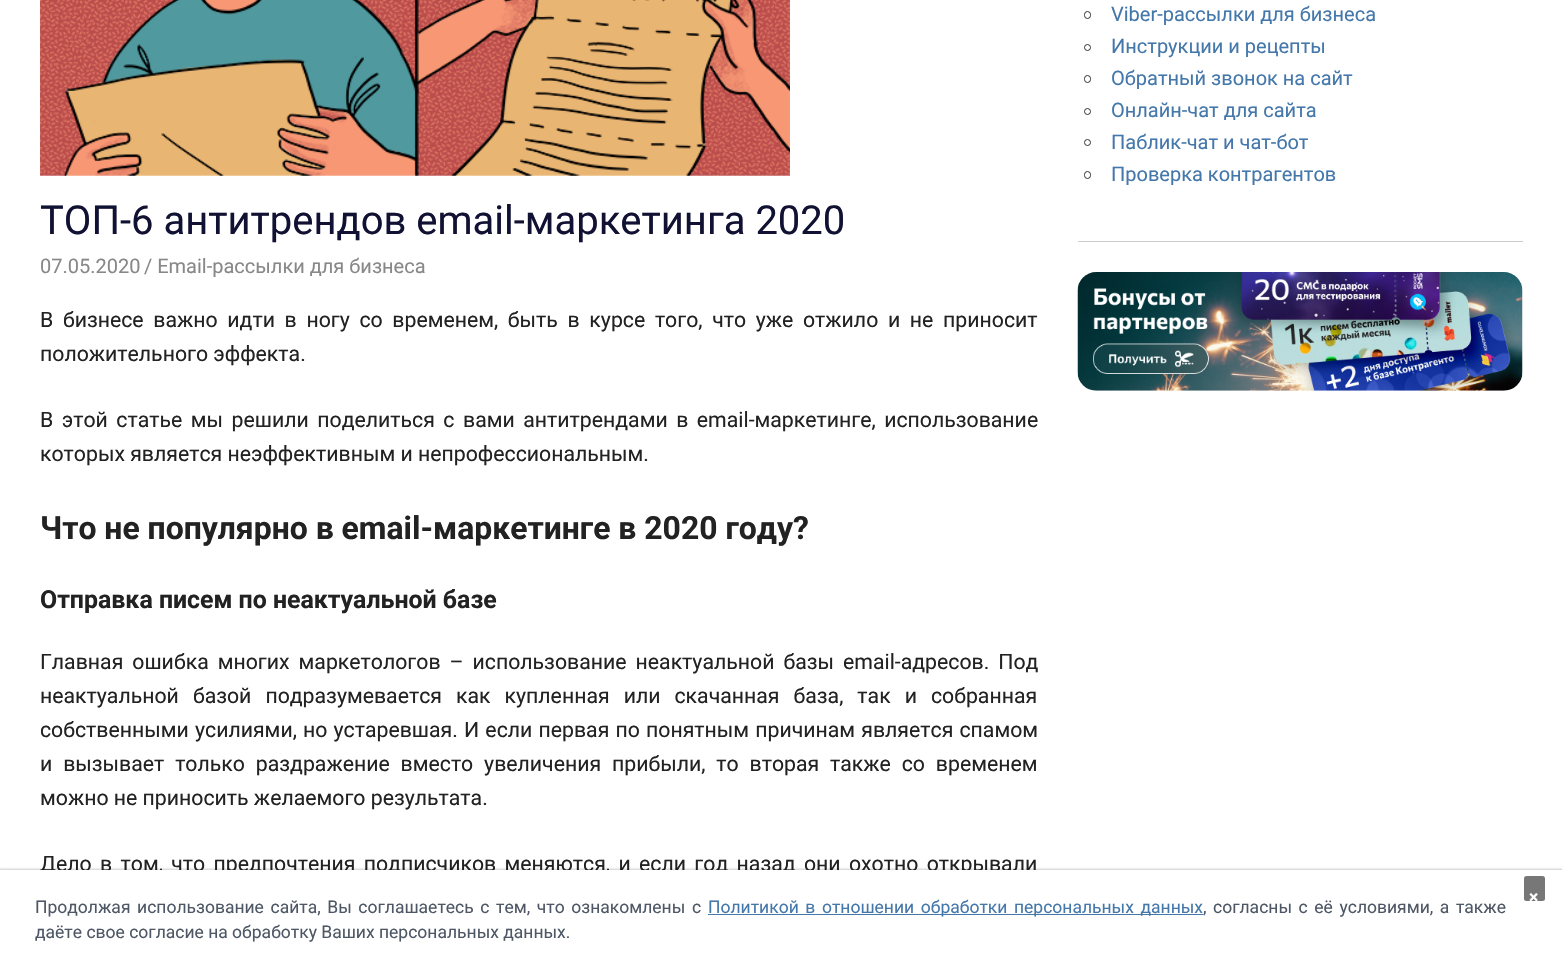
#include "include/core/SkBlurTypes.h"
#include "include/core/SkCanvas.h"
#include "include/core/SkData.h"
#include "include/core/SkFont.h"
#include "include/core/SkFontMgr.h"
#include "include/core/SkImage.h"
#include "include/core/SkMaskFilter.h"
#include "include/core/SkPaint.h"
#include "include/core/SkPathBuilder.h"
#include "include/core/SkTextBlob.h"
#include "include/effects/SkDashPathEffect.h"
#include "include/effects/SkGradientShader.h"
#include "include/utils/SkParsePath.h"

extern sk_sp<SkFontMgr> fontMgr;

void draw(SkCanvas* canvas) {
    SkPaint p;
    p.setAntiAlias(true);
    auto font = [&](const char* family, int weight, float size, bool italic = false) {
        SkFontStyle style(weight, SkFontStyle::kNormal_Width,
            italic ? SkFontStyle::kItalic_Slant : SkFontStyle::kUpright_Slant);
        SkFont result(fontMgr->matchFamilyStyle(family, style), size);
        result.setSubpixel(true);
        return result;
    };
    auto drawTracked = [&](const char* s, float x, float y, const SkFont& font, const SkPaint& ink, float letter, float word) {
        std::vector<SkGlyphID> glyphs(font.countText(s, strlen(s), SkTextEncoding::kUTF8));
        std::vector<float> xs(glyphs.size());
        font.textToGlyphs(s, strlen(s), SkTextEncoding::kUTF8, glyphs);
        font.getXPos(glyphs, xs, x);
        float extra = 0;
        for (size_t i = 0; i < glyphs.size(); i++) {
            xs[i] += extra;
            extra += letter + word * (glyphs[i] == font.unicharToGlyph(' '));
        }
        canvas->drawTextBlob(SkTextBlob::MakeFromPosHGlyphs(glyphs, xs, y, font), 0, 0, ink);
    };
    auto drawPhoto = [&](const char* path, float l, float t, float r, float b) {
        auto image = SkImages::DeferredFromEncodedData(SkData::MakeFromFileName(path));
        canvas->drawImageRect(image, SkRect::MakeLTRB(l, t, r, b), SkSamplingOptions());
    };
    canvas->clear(0xFFFFFFFF);
    p.setStyle(SkPaint::kStroke_Style);
    p.setStrokeWidth(1);
    p.setColor(0xFF333333);
    canvas->drawRoundRect(SkRect::MakeLTRB(1084.5f, 11.5f, 1090.5f, 18.5f), 3, 3, p);
    auto font1 = font("Roboto", 400, 20);
    p.setStyle(SkPaint::kFill_Style);
    p.setColor(0xFF4477AA);
    canvas->drawString("Viber-рассылки для бизнеса", 1111, 21, font1, p);
    p.setStyle(SkPaint::kStroke_Style);
    p.setColor(0xFF333333);
    canvas->drawCircle(1087.5f, 47.5f, 3, p);
    p.setStyle(SkPaint::kFill_Style);
    p.setColor(0xFF4477AA);
    canvas->drawString("Инструкции и рецепты", 1111, 53, font1, p);
    p.setStyle(SkPaint::kStroke_Style);
    p.setColor(0xFF333333);
    canvas->drawRoundRect(SkRect::MakeLTRB(1084.5f, 75.5f, 1090.5f, 82.5f), 3, 3, p);
    p.setStyle(SkPaint::kFill_Style);
    p.setColor(0xFF4477AA);
    canvas->drawString("Обратный звонок на сайт", 1111, 85, font1, p);
    p.setStyle(SkPaint::kStroke_Style);
    p.setColor(0xFF333333);
    canvas->drawCircle(1087.5f, 111.5f, 3, p);
    p.setStyle(SkPaint::kFill_Style);
    p.setColor(0xFF4477AA);
    canvas->drawString("Онлайн-чат для сайта", 1111, 117, font1, p);
    p.setStyle(SkPaint::kStroke_Style);
    p.setColor(0xFF333333);
    canvas->drawCircle(1087.5f, 142.5f, 3, p);
    p.setStyle(SkPaint::kFill_Style);
    p.setColor(0xFF4477AA);
    canvas->drawString("Паблик-чат и чат-бот", 1111, 149, font1, p);
    p.setStyle(SkPaint::kStroke_Style);
    p.setColor(0xFF333333);
    canvas->drawRoundRect(SkRect::MakeLTRB(1084.5f, 171.5f, 1090.5f, 178.5f), 3, 3, p);
    p.setStyle(SkPaint::kFill_Style);
    p.setColor(0xFF4477AA);
    canvas->drawString("Проверка контрагентов", 1111, 181, font1, p);
    p.setColor(0xFFCCCCCC);
    canvas->drawRect(SkRect::MakeLTRB(1078, 241, 1523, 242), p);
    drawPhoto("media/1.png", 1077, 272, 1523, 391);
    drawPhoto("media/2.png", 40, 0, 790, 176);
    auto font2 = font("Roboto", 400, 40);
    p.setColor(0xFF111133);
    canvas->drawString("ТОП-6 антитрендов email-маркетинга 2020", 40, 234, font2, p);
    p.setColor(0xFF888888);
    canvas->drawString("07.05.2020", 40, 273, font1, p);
    canvas->drawString("/ Email-рассылки для бизнеса", 144, 273, font1, p);
    auto font3 = font("Roboto", 400, 21.25f);
    p.setColor(0xFF222222);
    drawTracked("В бизнесе важно идти в ногу со временем, быть в курсе того, что уже отжило и не приносит", 40, 327, font3, p, 0, 4.4f);
    canvas->drawString("положительного эффекта.", 40, 361, font3, p);
    drawTracked("В этой статье мы решили поделиться с вами антитрендами в email-маркетинге, использование", 40, 427, font3, p, 0, 3.25f);
    canvas->drawString("которых является неэффективным и непрофессиональным.", 40, 461, font3, p);
    auto font4 = font("Roboto", 700, 31.9f);
    canvas->drawString("Что не популярно в email-маркетинге в 2020 году?", 40, 539, font4, p);
    auto font5 = font("Roboto", 700, 24.9f);
    canvas->drawString("Отправка писем по неактуальной базе", 40, 608, font5, p);
    drawTracked("Главная ошибка многих маркетологов – использование неактуальной базы email-адресов. Под", 40, 669, font3, p, 0, 3.75f);
    drawTracked("неактуальной базой подразумевается как купленная или скачанная база, так и собранная", 40, 703, font3, p, 0, 8.75f);
    drawTracked("собственными усилиями, но устаревшая. И если первая по понятным причинам является спамом", 40, 737, font3, p, 0, 0.9f);
    drawTracked("и вызывает только раздражение вместо увеличения прибыли, то вторая также со временем", 40, 771, font3, p, 0, 5.6f);
    canvas->drawString("можно не приносить желаемого результата.", 40, 805, font3, p);
    drawTracked("Дело в том, что предпочтения подписчиков меняются, и если год назад они охотно открывали", 40, 871, font3, p, 0, 3.1f);
    p.setColor(0x33000000);
    p.setMaskFilter(SkMaskFilter::MakeBlur(kNormal_SkBlurStyle, 1));
    canvas->drawRect(SkRect::MakeLTRB(-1, 869, 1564, 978), p);
    p.setMaskFilter(nullptr);
    p.setColor(0xFFFFFFFF);
    canvas->drawRect(SkRect::MakeLTRB(0, 870, 1562, 976), p);
    p.setColor(0xFF777777);
    canvas->drawRoundRect(SkRect::MakeLTRB(1524, 876, 1545, 901), 2.5f, 2.5f, p);
    auto font6 = font("Roboto", 700, 17.5f);
    p.setColor(0xFFFFFFFF);
    canvas->drawString("×", 1529, 903, font6, p);
    auto font7 = font("Roboto", 400, 17.5f);
    p.setColor(0xFF4E5765);
    drawTracked("Продолжая использование сайта, Вы соглашаетесь с тем, что ознакомлены с", 35, 913, font7, p, 0, 2.25f);
    p.setColor(0xFF4477AA);
    canvas->drawRect(SkRect::MakeLTRB(708, 914, 1203, 915), p);
    drawTracked("Политикой в отношении обработки персональных данных", 708, 913, font7, p, 0, 2.25f);
    p.setColor(0xFF4E5765);
    canvas->drawString(",", 1203, 913, font7, p);
    drawTracked("согласны с её условиями, а также", 1213, 913, font7, p, 0, 2.25f);
    canvas->drawString("даёте свое согласие на обработку Ваших персональных данных.", 35, 938, font7, p);
}
